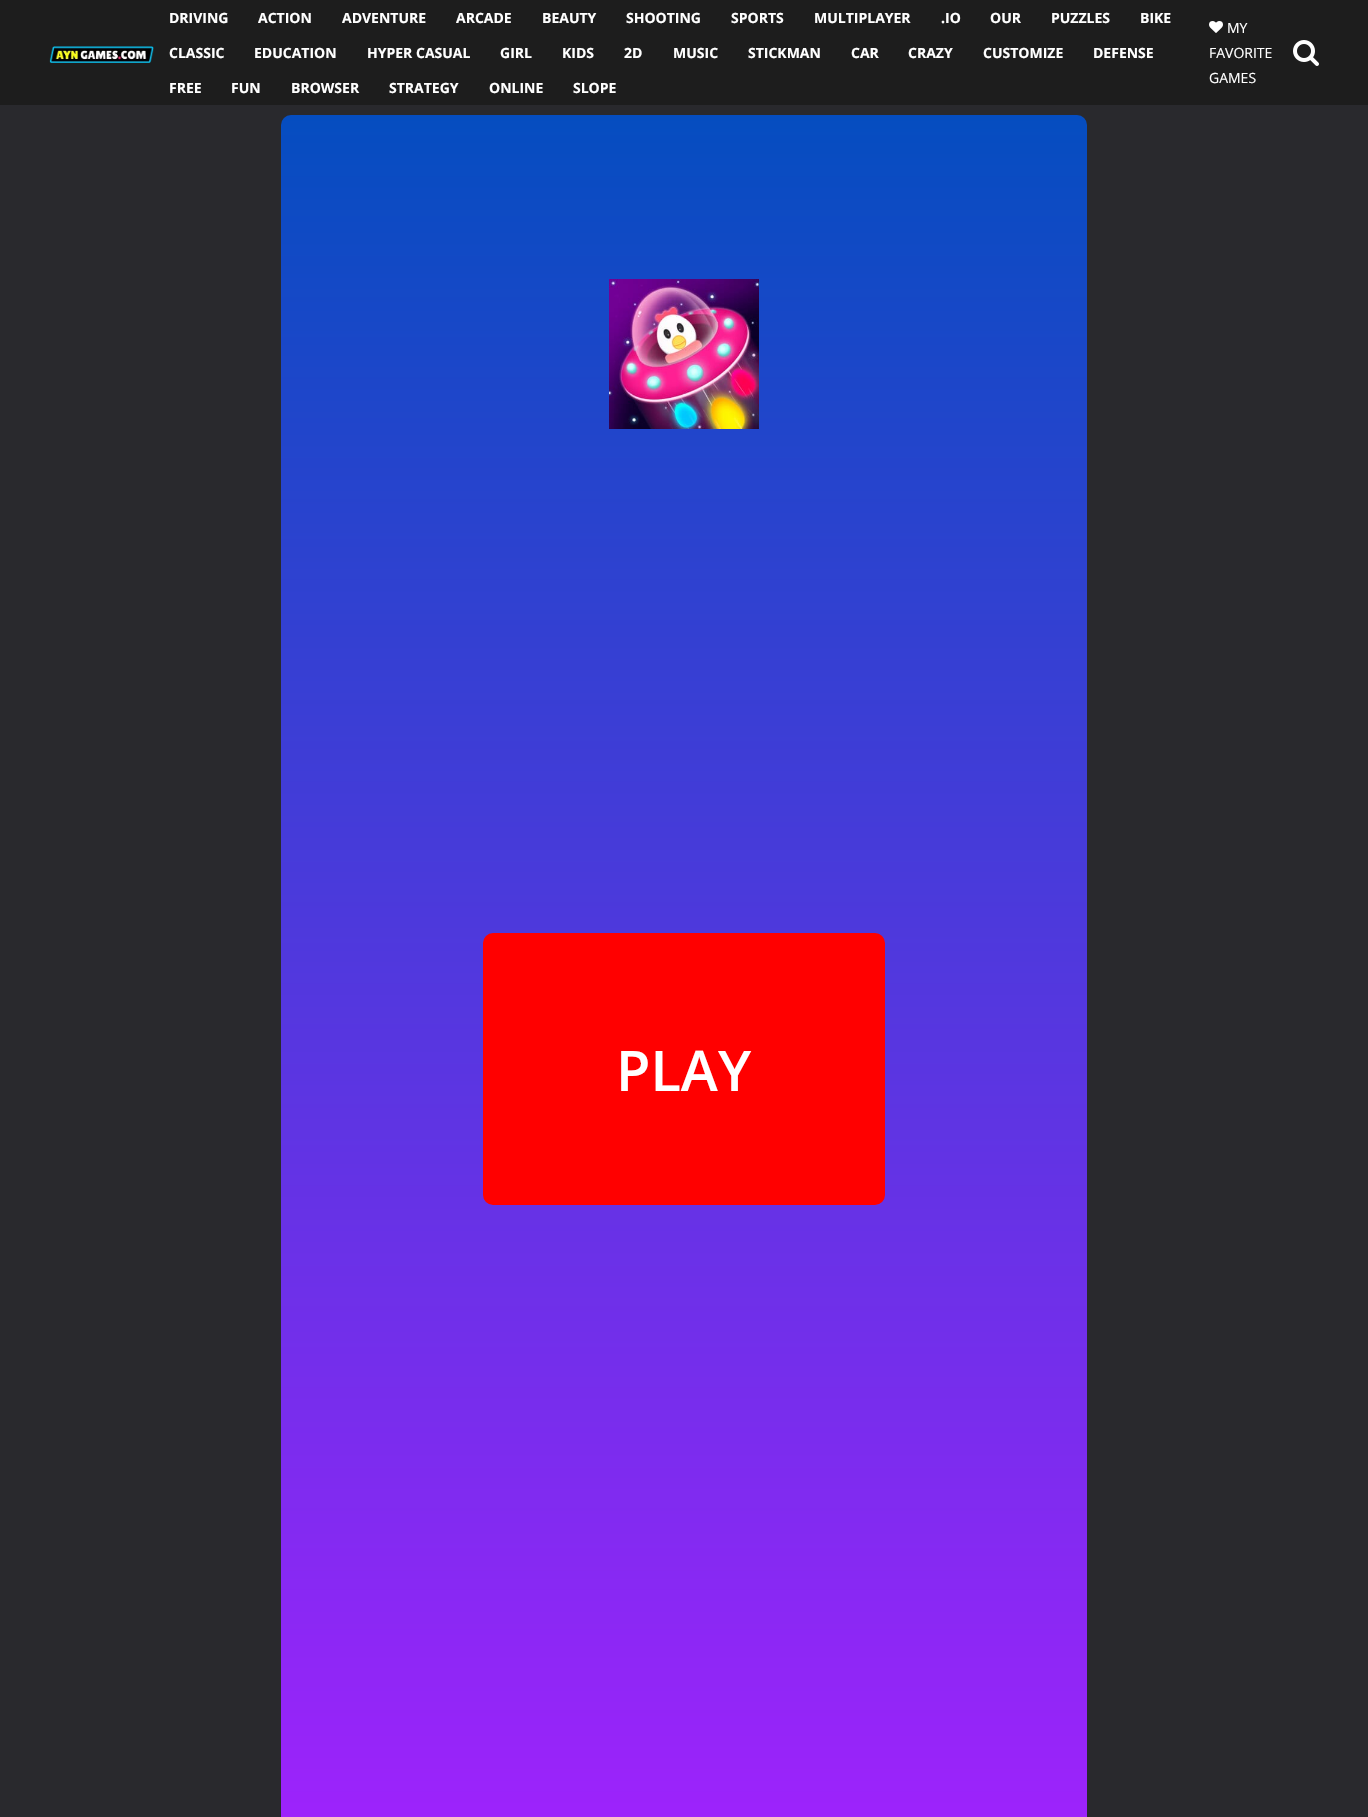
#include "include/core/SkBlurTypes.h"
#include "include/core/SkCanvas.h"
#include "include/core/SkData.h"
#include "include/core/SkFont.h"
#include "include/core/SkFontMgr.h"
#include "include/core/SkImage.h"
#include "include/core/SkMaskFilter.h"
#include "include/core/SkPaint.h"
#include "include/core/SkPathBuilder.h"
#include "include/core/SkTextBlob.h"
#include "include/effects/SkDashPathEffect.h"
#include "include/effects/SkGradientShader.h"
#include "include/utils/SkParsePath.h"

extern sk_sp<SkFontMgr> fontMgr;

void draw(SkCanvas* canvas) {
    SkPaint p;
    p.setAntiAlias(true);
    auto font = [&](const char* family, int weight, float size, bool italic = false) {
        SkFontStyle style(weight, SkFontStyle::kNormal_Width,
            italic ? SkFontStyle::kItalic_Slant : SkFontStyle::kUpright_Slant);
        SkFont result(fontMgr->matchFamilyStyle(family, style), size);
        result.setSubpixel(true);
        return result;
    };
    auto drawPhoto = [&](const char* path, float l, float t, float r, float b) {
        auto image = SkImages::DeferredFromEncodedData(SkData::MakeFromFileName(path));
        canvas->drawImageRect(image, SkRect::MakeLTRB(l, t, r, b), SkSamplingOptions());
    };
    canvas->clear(0xFF1D1D1D);
    drawPhoto("media/1.png", 49, 46, 154, 63);
    auto font1 = font("Open Sans", 700, 14);
    p.setColor(0xFFFFFFFF);
    {
        const struct { const char* s; float x, y; } items[] = {
            {"DRIVING", 169, 23},
            {"ACTION", 258, 23},
            {"ADVENTURE", 342, 23},
            {"ARCADE", 456, 23},
            {"BEAUTY", 542, 23},
            {"SHOOTING", 626, 23},
            {"SPORTS", 731, 23},
            {"MULTIPLAYER", 814, 23},
            {".IO", 941, 23},
            {"OUR", 990, 23},
            {"PUZZLES", 1051, 23},
            {"BIKE", 1140, 23},
            {"CLASSIC", 169, 58},
            {"EDUCATION", 254, 58},
            {"HYPER CASUAL", 367, 58},
            {"GIRL", 500, 58},
            {"KIDS", 562, 58},
            {"2D", 624, 58},
            {"MUSIC", 673, 58},
            {"STICKMAN", 748, 58},
            {"CAR", 851, 58},
            {"CRAZY", 908, 58},
            {"CUSTOMIZE", 983, 58},
            {"DEFENSE", 1093, 58},
            {"FREE", 169, 93},
            {"FUN", 231, 93},
            {"BROWSER", 291, 93},
            {"STRATEGY", 389, 93},
            {"ONLINE", 489, 93},
            {"SLOPE", 573, 93},
        };
        for (auto [s, x, y] : items) {
            canvas->drawString(s, x, y, font1, p);
        }
    }
    drawPhoto("media/2.png", 1209, 21, 1223, 33);
    auto font2 = font("Open Sans", 400, 14);
    {
        const struct { const char* s; float x, y; } items[] = {
            {"MY", 1227, 33},
            {"FAVORITE", 1209, 58},
            {"GAMES", 1209, 83},
        };
        for (auto [s, x, y] : items) {
            canvas->drawString(s, x, y, font2, p);
        }
    }
    drawPhoto("media/3.png", 1293, 40, 1319, 66);
    p.setColor(0xFF29292D);
    canvas->drawRect(SkRect::MakeLTRB(0, 105, 1368, 1817), p);
    {
        const SkColor colors[] = {0xFF054DC0, 0xFFA720FF};
        const float stops[] = {0, 1};
        const SkPoint ends[] = {{684, 115}, {684, 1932}};
        p.setShader(SkGradientShader::MakeLinear(ends, colors, stops, 2, SkTileMode::kClamp));
        p.setAlpha(255);
    }
    canvas->drawRoundRect(SkRect::MakeLTRB(281, 115, 1087, 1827), 10, 10, p);
    drawPhoto("media/4.png", 609, 279, 759, 429);
    p.setShader(nullptr);
    p.setColor(0xFFFF0000);
    canvas->drawRoundRect(SkRect::MakeLTRB(483, 933, 885, 1205), 10, 10, p);
    auto font3 = font("Open Sans", 600, 56);
    p.setColor(0xFFFFFFFF);
    canvas->drawString("PLAY", 616, 1091, font3, p);
}
